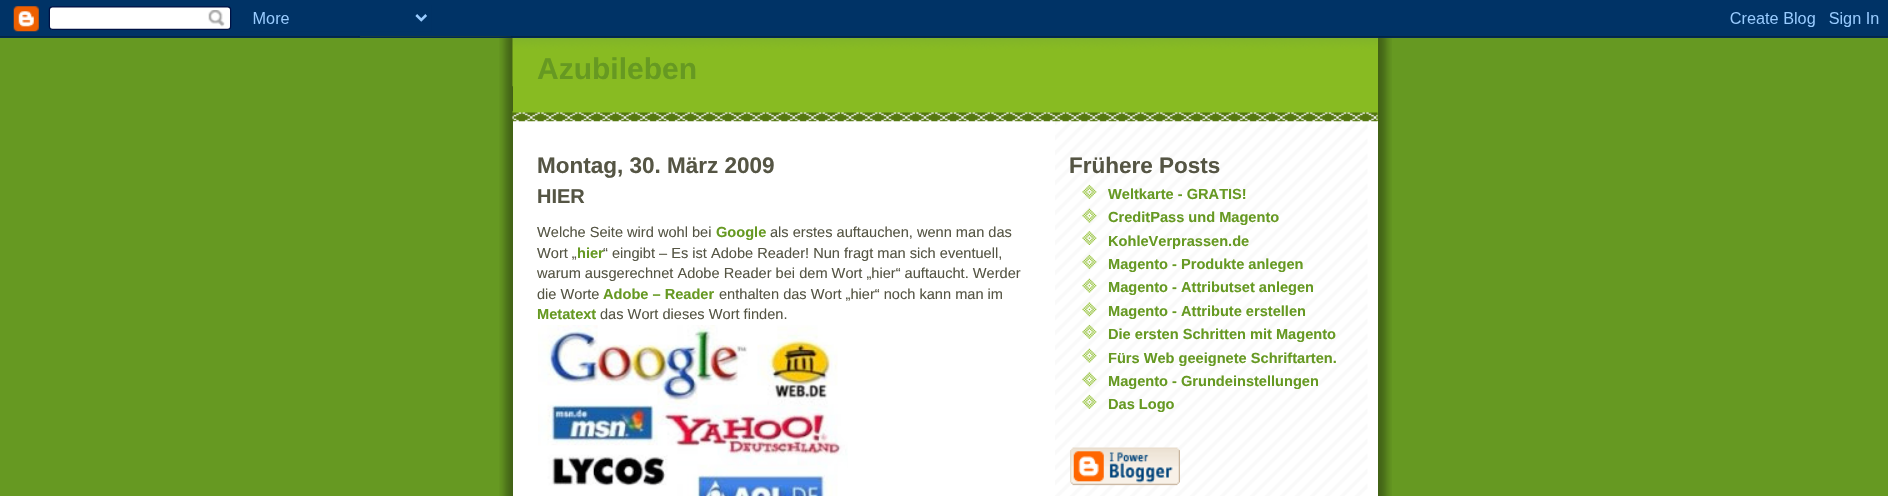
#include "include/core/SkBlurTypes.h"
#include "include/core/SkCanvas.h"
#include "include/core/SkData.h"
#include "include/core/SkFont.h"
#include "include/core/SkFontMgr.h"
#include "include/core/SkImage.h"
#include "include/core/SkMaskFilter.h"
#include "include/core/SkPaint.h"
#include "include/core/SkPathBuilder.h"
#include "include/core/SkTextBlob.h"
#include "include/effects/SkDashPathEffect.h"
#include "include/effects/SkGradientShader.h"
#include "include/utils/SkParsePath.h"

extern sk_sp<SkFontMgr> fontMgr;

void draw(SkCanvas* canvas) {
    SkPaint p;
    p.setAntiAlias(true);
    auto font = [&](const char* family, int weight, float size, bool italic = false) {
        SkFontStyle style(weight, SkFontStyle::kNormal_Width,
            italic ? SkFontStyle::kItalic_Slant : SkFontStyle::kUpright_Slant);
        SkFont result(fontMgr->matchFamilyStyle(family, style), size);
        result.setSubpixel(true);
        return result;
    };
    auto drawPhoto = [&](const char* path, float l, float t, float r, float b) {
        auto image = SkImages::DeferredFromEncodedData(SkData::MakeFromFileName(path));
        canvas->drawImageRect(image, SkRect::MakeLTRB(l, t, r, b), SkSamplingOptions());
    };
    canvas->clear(0xFF669922);
    drawPhoto("media/1.png", 499, 36, 1392, 496);
    p.setColor(0xFF88BB22);
    canvas->drawRect(SkRect::MakeLTRB(513, 36, 1378, 121), p);
    drawPhoto("media/5.png", 512, 36, 1378, 87);
    drawPhoto("media/2.png", 0, 0, 1888, 38);
    p.setColor(0xFFFFFFFF);
    canvas->drawRect(SkRect::MakeLTRB(513, 121, 1378, 496), p);
    drawPhoto("media/3.png", 1055, 121, 1378, 496);
    drawPhoto("media/4.png", 512, 111, 1378, 122);
    auto font1 = font("Liberation Sans", 700, 30);
    p.setColor(0xFF669922);
    canvas->drawString("Azubileben", 537, 79, font1, p);
    auto font2 = font("Liberation Sans", 700, 22.5f);
    p.setColor(0xFF555544);
    canvas->drawString("Montag, 30. März 2009", 537, 173, font2, p);
    auto font3 = font("Liberation Sans", 700, 20);
    canvas->drawString("HIER", 537, 203, font3, p);
    auto font4 = font("Liberation Sans", 400, 14.6f);
    canvas->drawString("Welche Seite wird wohl bei", 537, 237, font4, p);
    auto font5 = font("Liberation Sans", 700, 14.6f);
    p.setColor(0xFF669922);
    canvas->drawString("Google", 716, 237, font5, p);
    p.setColor(0xFF555544);
    canvas->drawString("als erstes auftauchen, wenn man das", 770, 237, font4, p);
    canvas->drawString("Wort „", 537, 258, font4, p);
    p.setColor(0xFF669922);
    canvas->drawString("hier", 577, 258, font5, p);
    p.setColor(0xFF555544);
    {
        const struct { const char* s; float x, y; } items[] = {
            {"“ eingibt – Es ist Adobe Reader! Nun fragt man sich eventuell,", 603, 258},
            {"warum ausgerechnet Adobe Reader bei dem Wort „hier“ auftaucht. Werder", 537, 278},
            {"die Worte", 537, 299},
        };
        for (auto [s, x, y] : items) {
            canvas->drawString(s, x, y, font4, p);
        }
    }
    p.setColor(0xFF669922);
    canvas->drawString("Adobe – Reader", 603, 299, font5, p);
    p.setColor(0xFF555544);
    canvas->drawString("enthalten das Wort „hier“ noch kann man im", 719, 299, font4, p);
    p.setColor(0xFF669922);
    canvas->drawString("Metatext", 537, 319, font5, p);
    p.setColor(0xFF555544);
    canvas->drawString("das Wort dieses Wort finden.", 600, 319, font4, p);
    drawPhoto("media/6.png", 538, 325, 848, 496);
    canvas->drawString("Frühere Posts", 1069, 173, font2, p);
    drawPhoto("media/7.png", 1082, 184, 1097, 199);
    p.setColor(0xFF669922);
    canvas->drawString("Weltkarte - GRATIS!", 1108, 199, font5, p);
    drawPhoto("media/8.png", 1082, 208, 1097, 223);
    canvas->drawString("CreditPass und Magento", 1108, 222, font5, p);
    drawPhoto("media/9.png", 1082, 231, 1097, 245);
    canvas->drawString("KohleVerprassen.de", 1108, 246, font5, p);
    drawPhoto("media/10.png", 1082, 254, 1097, 269);
    canvas->drawString("Magento - Produkte anlegen", 1108, 269, font5, p);
    drawPhoto("media/11.png", 1082, 278, 1097, 293);
    canvas->drawString("Magento - Attributset anlegen", 1108, 292, font5, p);
    drawPhoto("media/12.png", 1082, 302, 1097, 317);
    canvas->drawString("Magento - Attribute erstellen", 1108, 316, font5, p);
    drawPhoto("media/13.png", 1082, 324, 1097, 339);
    canvas->drawString("Die ersten Schritten mit Magento", 1108, 339, font5, p);
    drawPhoto("media/14.png", 1082, 348, 1097, 363);
    canvas->drawString("Fürs Web geeignete Schriftarten.", 1108, 363, font5, p);
    drawPhoto("media/15.png", 1082, 372, 1097, 387);
    canvas->drawString("Magento - Grundeinstellungen", 1108, 386, font5, p);
    drawPhoto("media/7.png", 1082, 394, 1097, 409);
    canvas->drawString("Das Logo", 1108, 409, font5, p);
    drawPhoto("media/16.png", 1070, 447, 1180, 486);
}
